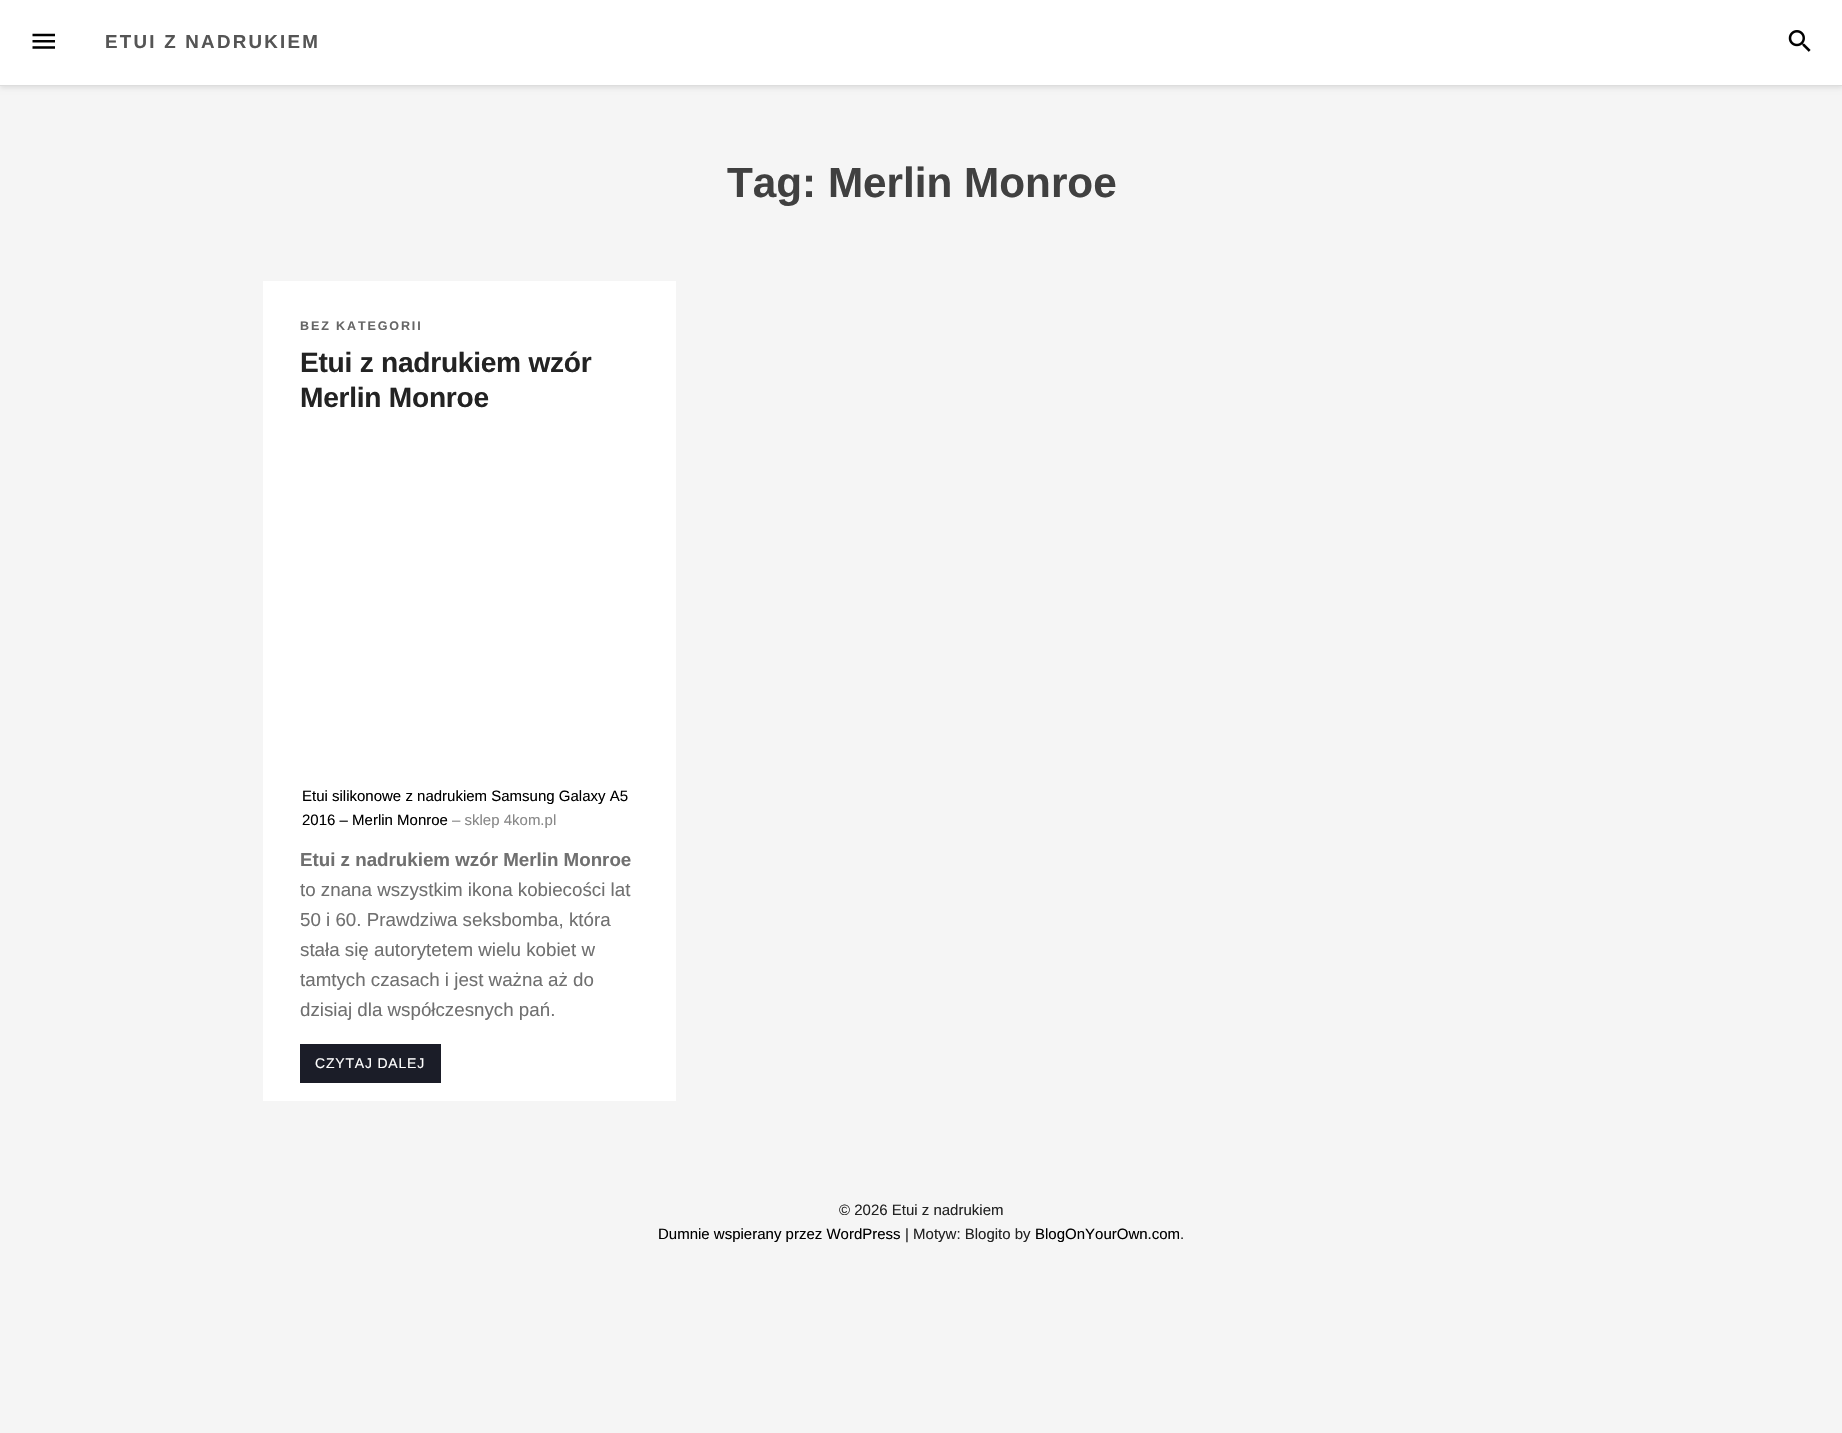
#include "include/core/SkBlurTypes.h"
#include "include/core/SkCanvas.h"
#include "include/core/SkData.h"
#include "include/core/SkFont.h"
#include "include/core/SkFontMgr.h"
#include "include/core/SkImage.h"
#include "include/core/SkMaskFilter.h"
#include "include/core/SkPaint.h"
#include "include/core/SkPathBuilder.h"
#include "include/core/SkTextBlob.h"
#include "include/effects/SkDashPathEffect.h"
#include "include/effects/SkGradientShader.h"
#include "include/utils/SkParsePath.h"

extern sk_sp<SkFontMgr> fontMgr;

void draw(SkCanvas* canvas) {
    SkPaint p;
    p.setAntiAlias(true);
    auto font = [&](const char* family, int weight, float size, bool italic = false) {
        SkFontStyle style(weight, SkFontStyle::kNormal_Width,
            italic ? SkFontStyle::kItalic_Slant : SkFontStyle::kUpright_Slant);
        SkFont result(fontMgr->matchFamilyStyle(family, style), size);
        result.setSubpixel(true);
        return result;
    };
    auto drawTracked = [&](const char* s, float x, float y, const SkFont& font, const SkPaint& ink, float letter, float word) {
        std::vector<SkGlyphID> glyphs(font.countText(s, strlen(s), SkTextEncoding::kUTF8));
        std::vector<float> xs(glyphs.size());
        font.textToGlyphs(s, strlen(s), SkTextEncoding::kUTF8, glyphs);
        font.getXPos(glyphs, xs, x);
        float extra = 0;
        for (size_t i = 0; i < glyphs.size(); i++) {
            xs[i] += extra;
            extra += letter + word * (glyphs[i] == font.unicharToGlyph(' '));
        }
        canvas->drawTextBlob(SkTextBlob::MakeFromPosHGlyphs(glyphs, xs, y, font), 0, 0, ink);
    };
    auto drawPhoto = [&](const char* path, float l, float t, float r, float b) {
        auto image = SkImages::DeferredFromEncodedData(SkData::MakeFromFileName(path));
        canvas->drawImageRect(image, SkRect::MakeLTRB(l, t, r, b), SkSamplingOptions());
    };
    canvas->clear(0xFFF5F5F5);
    p.setColor(0xFFDDDDDD);
    p.setMaskFilter(SkMaskFilter::MakeBlur(kNormal_SkBlurStyle, 2.5f));
    canvas->drawRect(SkRect::MakeLTRB(0, 1, 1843, 88), p);
    p.setMaskFilter(nullptr);
    p.setColor(0xFFFFFFFF);
    canvas->drawRect(SkRect::MakeLTRB(0, 0, 1842, 85), p);
    p.setColor(0xFFDDDDDD);
    canvas->drawRect(SkRect::MakeLTRB(0, 85, 1842, 86), p);
    drawPhoto("media/1.png", 32, 33, 55, 49);
    auto font1 = font("Liberation Sans", 700, 18.75f);
    p.setColor(0xFF555555);
    drawTracked("ETUI Z NADRUKIEM", 105, 48, font1, p, 2.25f, 0);
    drawPhoto("media/2.png", 1788, 30, 1811, 52);
    auto font2 = font("Liberation Sans", 700, 42.25f);
    p.setColor(0xFF404040);
    canvas->drawString("Tag: Merlin Monroe", 727, 197, font2, p);
    p.setColor(0xFFFFFFFF);
    canvas->drawRect(SkRect::MakeLTRB(263, 281, 676, 1101), p);
    auto font3 = font("Liberation Sans", 700, 12.5f);
    p.setColor(0xFF666666);
    drawTracked("BEZ KATEGORII", 300, 330, font3, p, 1.9f, 0);
    auto font4 = font("Liberation Sans", 700, 28.1f);
    p.setColor(0xFF232323);
    drawTracked("Etui z nadrukiem wzór", 300, 372, font4, p, -0.25f, 0);
    drawTracked("Merlin Monroe", 300, 407, font4, p, -0.25f, 0);
    auto font5 = font("Liberation Sans", 400, 15);
    p.setColor(0xFF000000);
    canvas->drawString("Etui silikonowe z nadrukiem Samsung Galaxy A5", 302, 801, font5, p);
    canvas->drawString("2016 – Merlin Monroe", 302, 825, font5, p);
    p.setColor(0xFF888888);
    canvas->drawString("– sklep 4kom.pl", 452, 825, font5, p);
    p.setColor(0xFF707070);
    canvas->drawString("Etui z nadrukiem wzór Merlin Monroe", 300, 866, font1, p);
    auto font6 = font("Liberation Sans", 400, 18.75f);
    {
        const struct { const char* s; float x, y; } items[] = {
            {"to znana wszystkim ikona kobiecości lat", 300, 896},
            {"50 i 60. Prawdziwa seksbomba, która", 300, 926},
            {"stała się autorytetem wielu kobiet w", 300, 956},
            {"tamtych czasach i jest ważna aż do", 300, 986},
            {"dzisiaj dla współczesnych pań.", 300, 1016},
        };
        for (auto [s, x, y] : items) {
            canvas->drawString(s, x, y, font6, p);
        }
    }
    p.setColor(0xFF1B1D28);
    canvas->drawRect(SkRect::MakeLTRB(300, 1044, 441, 1083), p);
    auto font7 = font("Liberation Sans", 400, 14);
    p.setColor(0xFFFFFFFF);
    drawTracked("CZYTAJ DALEJ", 315, 1068, font7, p, 0.8f, 0);
    p.setColor(0xFF232323);
    canvas->drawString("© 2026 Etui z nadrukiem", 839, 1215, font5, p);
    p.setColor(0xFF000000);
    canvas->drawString("Dumnie wspierany przez WordPress", 658, 1239, font5, p);
    p.setColor(0xFF232323);
    canvas->drawString("| Motyw: Blogito by", 905, 1239, font5, p);
    p.setColor(0xFF000000);
    canvas->drawString("BlogOnYourOwn.com", 1035, 1239, font5, p);
    p.setColor(0xFF232323);
    canvas->drawString(".", 1180, 1239, font5, p);
}
